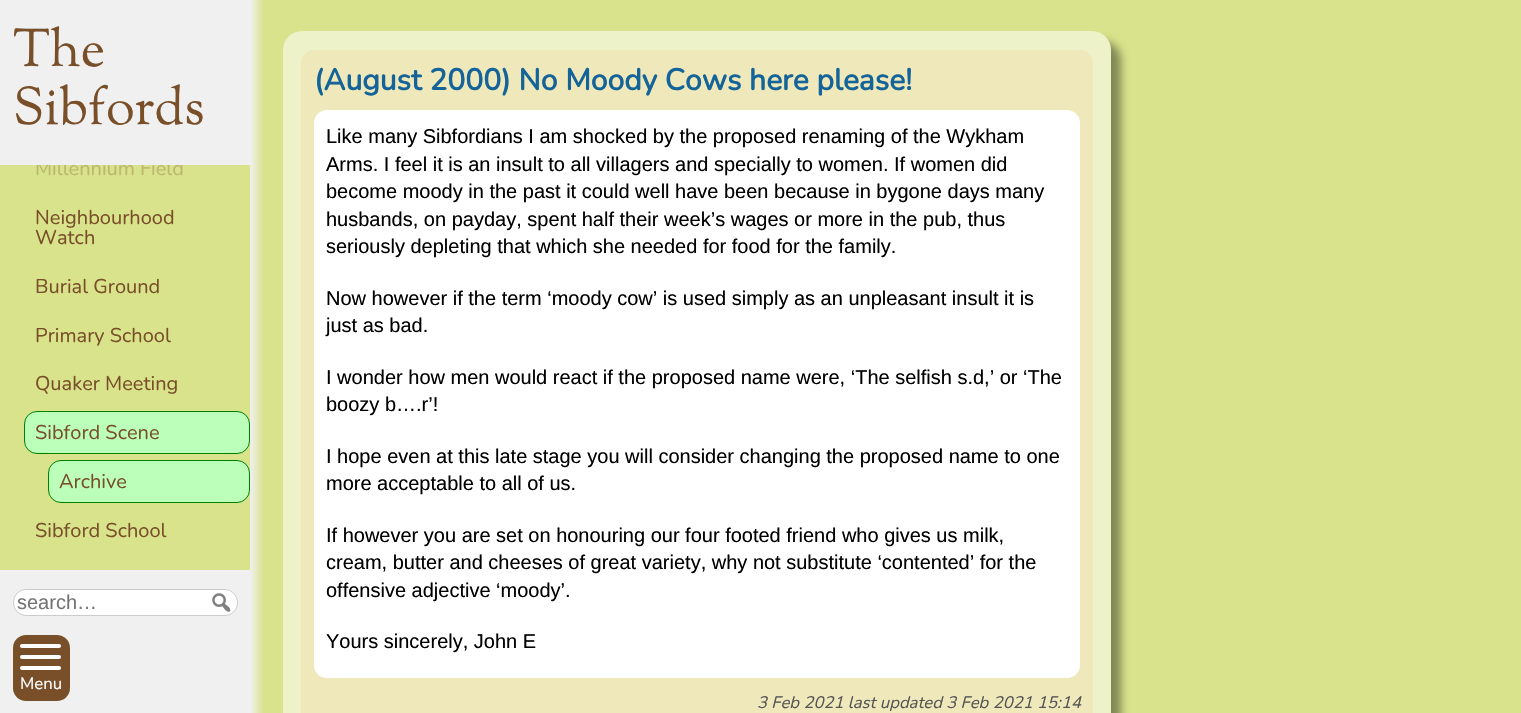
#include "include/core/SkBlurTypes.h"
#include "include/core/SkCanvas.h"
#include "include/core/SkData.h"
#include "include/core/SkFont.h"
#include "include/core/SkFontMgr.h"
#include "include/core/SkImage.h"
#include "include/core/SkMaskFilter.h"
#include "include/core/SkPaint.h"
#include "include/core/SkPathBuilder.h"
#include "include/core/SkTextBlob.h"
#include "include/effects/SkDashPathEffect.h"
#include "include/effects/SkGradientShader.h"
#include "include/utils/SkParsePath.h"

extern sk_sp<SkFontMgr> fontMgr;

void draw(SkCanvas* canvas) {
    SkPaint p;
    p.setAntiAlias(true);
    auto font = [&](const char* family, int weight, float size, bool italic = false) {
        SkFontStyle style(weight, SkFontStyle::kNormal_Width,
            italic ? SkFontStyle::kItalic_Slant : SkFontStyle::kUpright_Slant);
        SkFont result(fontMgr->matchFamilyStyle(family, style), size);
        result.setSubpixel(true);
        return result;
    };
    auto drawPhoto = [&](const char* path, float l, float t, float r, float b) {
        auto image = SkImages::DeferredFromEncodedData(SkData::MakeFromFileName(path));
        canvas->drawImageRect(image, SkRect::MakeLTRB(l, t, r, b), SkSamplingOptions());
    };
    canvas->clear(0xFFF0F0F0);
    {
        const SkColor colors[] = {0xFFF0F0F0, 0xFFD8E38B};
        const float stops[] = {0, 1};
        const SkPoint ends[] = {{250, 357}, {264, 357}};
        p.setShader(SkGradientShader::MakeLinear(ends, colors, stops, 2, SkTileMode::kClamp));
        p.setAlpha(255);
    }
    canvas->drawRect(SkRect::MakeLTRB(250, 0, 264, 713), p);
    auto font1 = font("Sorts Mill Goudy", 400, 52.5f);
    p.setShader(nullptr);
    p.setColor(0xFF794F29);
    canvas->drawString("The", 13, 66, font1, p);
    canvas->drawString("Sibfords", 13, 124, font1, p);
    p.setColor(0xFFD8E38B);
    canvas->drawRect(SkRect::MakeLTRB(264, 0, 1521, 713), p);
    p.setColor(0x66000000);
    p.setMaskFilter(SkMaskFilter::MakeBlur(kNormal_SkBlurStyle, 4));
    canvas->drawRoundRect(SkRect::MakeLTRB(293, 41, 1121, 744), 19, 19, p);
    p.setMaskFilter(nullptr);
    p.setColor(0xFFEDF2C9);
    canvas->drawPath(SkPathBuilder().moveTo(302, 31).lineTo(1092, 31).cubicTo(1102.5f, 31, 1111, 39.5f, 1111, 50).lineTo(1111, 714).lineTo(283, 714).lineTo(283, 50).cubicTo(283, 39.5f, 291.5f, 31, 302, 31).close().detach(), p);
    p.setColor(0xFFEFE8BA);
    canvas->drawPath(SkPathBuilder().moveTo(314, 50).lineTo(1080, 50).cubicTo(1087, 50, 1093, 56, 1093, 63).lineTo(1093, 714).lineTo(301, 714).lineTo(301, 63).cubicTo(301, 56, 307, 50, 314, 50).close().detach(), p);
    auto font2 = font("Nunito", 700, 30);
    p.setColor(0xFF146499);
    canvas->drawString("(August 2000) No Moody Cows here please!", 314, 90, font2, p);
    p.setColor(0xFFFFFFFF);
    canvas->drawRoundRect(SkRect::MakeLTRB(314, 110, 1080, 678), 13, 13, p);
    auto font3 = font("Liberation Sans", 400, 20);
    p.setColor(0xFF000000);
    {
        const struct { const char* s; float x, y; } items[] = {
            {"Like many Sibfordians I am shocked by the proposed renaming of the Wykham", 326, 143},
            {"Arms. I feel it is an insult to all villagers and specially to women. If women did", 326, 171},
            {"become moody in the past it could well have been because in bygone days many", 326, 198},
            {"husbands, on payday, spent half their week’s wages or more in the pub, thus", 326, 226},
            {"seriously depleting that which she needed for food for the family.", 326, 253},
            {"Now however if the term ‘moody cow’ is used simply as an unpleasant insult it is", 326, 305},
            {"just as bad.", 326, 332},
            {"I wonder how men would react if the proposed name were, ‘The selfish s.d,’ or ‘The", 326, 384},
            {"boozy b….r’!", 326, 411},
            {"I hope even at this late stage you will consider changing the proposed name to one", 326, 463},
            {"more acceptable to all of us.", 326, 490},
            {"If however you are set on honouring our four footed friend who gives us milk,", 326, 542},
            {"cream, butter and cheeses of great variety, why not substitute ‘contented’ for the", 326, 569},
            {"offensive adjective ‘moody’.", 326, 597},
            {"Yours sincerely, John E", 326, 648},
        };
        for (auto [s, x, y] : items) {
            canvas->drawString(s, x, y, font3, p);
        }
    }
    auto font4 = font("Nunito", 200, 16.7f, true);
    p.setColor(0xFF555555);
    canvas->drawString("3 Feb 2021 last updated 3 Feb 2021 15:14", 757, 708, font4, p);
    p.setColor(0xFFD8E38B);
    canvas->drawRect(SkRect::MakeLTRB(0, 165, 250, 570), p);
    canvas->save();
    canvas->clipRect(SkRect::MakeLTRB(0, 165, 250, 570));
    auto font5 = font("Nunito", 200, 20);
    p.setColor(0xFFBCB76E);
    canvas->drawString("Millennium Field", 35, 175, font5, p);
    canvas->restore();
    p.setColor(0xFF794F29);
    {
        const struct { const char* s; float x, y; } items[] = {
            {"Neighbourhood", 35, 224},
            {"Watch", 35, 244},
            {"Burial Ground", 35, 293},
            {"Primary School", 35, 342},
            {"Quaker Meeting", 35, 390},
        };
        for (auto [s, x, y] : items) {
            canvas->drawString(s, x, y, font5, p);
        }
    }
    p.setColor(0xFFBBFFBB);
    canvas->drawRoundRect(SkRect::MakeLTRB(24.5f, 411.5f, 249.5f, 453.5f), 12.5f, 12.5f, p);
    p.setStyle(SkPaint::kStroke_Style);
    p.setStrokeWidth(1);
    p.setColor(0xFF008000);
    canvas->drawRoundRect(SkRect::MakeLTRB(24.5f, 411.5f, 249.5f, 453.5f), 12.5f, 12.5f, p);
    p.setStyle(SkPaint::kFill_Style);
    p.setColor(0xFF794F29);
    canvas->drawString("Sibford Scene", 35, 439, font5, p);
    p.setColor(0xFFBBFFBB);
    canvas->drawRoundRect(SkRect::MakeLTRB(48.5f, 460.5f, 249.5f, 502.5f), 12.5f, 12.5f, p);
    p.setStyle(SkPaint::kStroke_Style);
    p.setColor(0xFF008000);
    canvas->drawRoundRect(SkRect::MakeLTRB(48.5f, 460.5f, 249.5f, 502.5f), 12.5f, 12.5f, p);
    p.setStyle(SkPaint::kFill_Style);
    p.setColor(0xFF794F29);
    canvas->drawString("Archive", 59, 488, font5, p);
    canvas->drawString("Sibford School", 35, 537, font5, p);
    p.setColor(0xFFFFFFFF);
    canvas->drawRoundRect(SkRect::MakeLTRB(13.5f, 589.5f, 237.5f, 615.5f), 12.5f, 12.5f, p);
    p.setStyle(SkPaint::kStroke_Style);
    p.setColor(0xFFCCCCCC);
    canvas->drawRoundRect(SkRect::MakeLTRB(13.5f, 589.5f, 237.5f, 615.5f), 12.5f, 12.5f, p);
    p.setStyle(SkPaint::kFill_Style);
    p.setColor(0xFF757575);
    canvas->drawString("search…", 17, 609, font3, p);
    drawPhoto("media/1.png", 212, 593, 231, 612);
    p.setColor(0xFF794F29);
    canvas->drawRoundRect(SkRect::MakeLTRB(13, 635, 70, 701), 13, 13, p);
    p.setColor(0xFFFFFFFF);
    canvas->drawRoundRect(SkRect::MakeLTRB(20, 655, 61, 659), 2, 2, p);
    canvas->drawRoundRect(SkRect::MakeLTRB(20, 644, 61, 648), 2, 2, p);
    canvas->drawRoundRect(SkRect::MakeLTRB(20, 666, 61, 670), 2, 2, p);
    auto font6 = font("Nunito", 200, 16.7f);
    canvas->drawString("Menu", 20, 689, font6, p);
}
